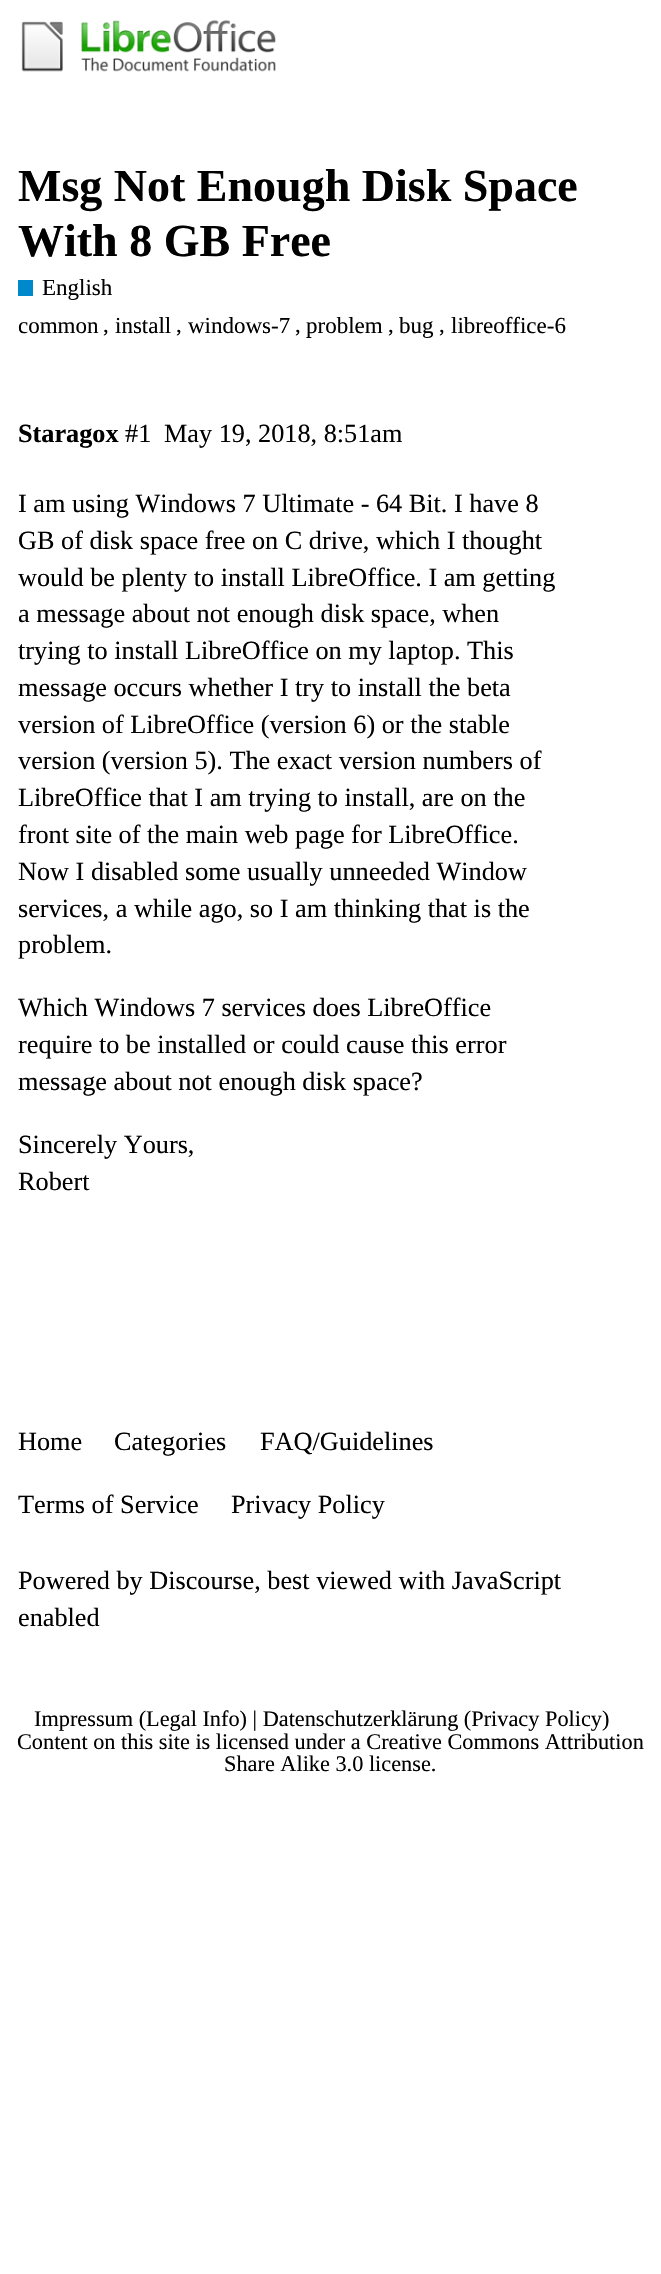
#include "include/core/SkBlurTypes.h"
#include "include/core/SkCanvas.h"
#include "include/core/SkData.h"
#include "include/core/SkFont.h"
#include "include/core/SkFontMgr.h"
#include "include/core/SkImage.h"
#include "include/core/SkMaskFilter.h"
#include "include/core/SkPaint.h"
#include "include/core/SkPathBuilder.h"
#include "include/core/SkTextBlob.h"
#include "include/effects/SkDashPathEffect.h"
#include "include/effects/SkGradientShader.h"
#include "include/utils/SkParsePath.h"

extern sk_sp<SkFontMgr> fontMgr;

void draw(SkCanvas* canvas) {
    SkPaint p;
    p.setAntiAlias(true);
    auto font = [&](const char* family, int weight, float size, bool italic = false) {
        SkFontStyle style(weight, SkFontStyle::kNormal_Width,
            italic ? SkFontStyle::kItalic_Slant : SkFontStyle::kUpright_Slant);
        SkFont result(fontMgr->matchFamilyStyle(family, style), size);
        result.setSubpixel(true);
        return result;
    };
    auto drawPhoto = [&](const char* path, float l, float t, float r, float b) {
        auto image = SkImages::DeferredFromEncodedData(SkData::MakeFromFileName(path));
        canvas->drawImageRect(image, SkRect::MakeLTRB(l, t, r, b), SkSamplingOptions());
    };
    canvas->clear(0xFFFFFFFF);
    drawPhoto("media/1.png", 21, 20, 276, 72);
    auto font1 = font("Liberation Serif", 700, 46);
    p.setColor(0xFF000000);
    canvas->drawString("Msg Not Enough Disk Space", 18, 201, font1, p);
    canvas->drawString("With 8 GB Free", 18, 256, font1, p);
    p.setColor(0xFF0088CC);
    canvas->drawRect(SkRect::MakeLTRB(18, 280, 33, 296), p);
    auto font2 = font("Liberation Serif", 400, 23);
    p.setColor(0xFF000000);
    {
        const struct { const char* s; float x, y; } items[] = {
            {"English", 42, 295},
            {"common", 18, 333},
            {",", 103, 332},
            {"install", 115, 333},
            {",", 176, 332},
            {"windows-7", 188, 333},
            {",", 295, 332},
            {"problem", 306, 333},
            {",", 388, 332},
            {"bug", 399, 333},
            {",", 439, 332},
            {"libreoffice-6", 451, 333},
        };
        for (auto [s, x, y] : items) {
            canvas->drawString(s, x, y, font2, p);
        }
    }
    auto font3 = font("Liberation Serif", 700, 26.25f);
    canvas->drawString("Staragox", 18, 442, font3, p);
    auto font4 = font("Liberation Serif", 400, 26.25f);
    {
        const struct { const char* s; float x, y; } items[] = {
            {"#1", 125, 442},
            {"May 19, 2018, 8:51am", 164, 442},
            {"I am using Windows 7 Ultimate - 64 Bit. I have 8", 18, 512},
            {"GB of disk space free on C drive, which I thought", 18, 549},
            {"would be plenty to install LibreOffice. I am getting", 18, 586},
            {"a message about not enough disk space, when", 18, 622},
            {"trying to install LibreOffice on my laptop. This", 18, 659},
            {"message occurs whether I try to install the beta", 18, 696},
            {"version of LibreOffice (version 6) or the stable", 18, 733},
            {"version (version 5). The exact version numbers of", 18, 769},
            {"LibreOffice that I am trying to install, are on the", 18, 806},
            {"front site of the main web page for LibreOffice.", 18, 843},
            {"Now I disabled some usually unneeded Window", 18, 880},
            {"services, a while ago, so I am thinking that is the", 18, 917},
            {"problem.", 18, 953},
            {"Which Windows 7 services does LibreOffice", 18, 1016},
            {"require to be installed or could cause this error", 18, 1053},
            {"message about not enough disk space?", 18, 1090},
            {"Sincerely Yours,", 18, 1153},
            {"Robert", 18, 1190},
            {"Home", 18, 1450},
            {"Categories", 114, 1450},
            {"FAQ/Guidelines", 260, 1450},
            {"Terms of Service", 18, 1513},
            {"Privacy Policy", 231, 1513},
            {"Powered by Discourse, best viewed with JavaScript", 18, 1589},
            {"enabled", 18, 1626},
        };
        for (auto [s, x, y] : items) {
            canvas->drawString(s, x, y, font4, p);
        }
    }
    auto font5 = font("Liberation Serif", 400, 22.3f);
    {
        const struct { const char* s; float x, y; } items[] = {
            {"Impressum (Legal Info) | Datenschutzerklärung (Privacy Policy)", 34, 1726},
            {"Content on this site is licensed under a Creative Commons Attribution", 17, 1749},
            {"Share Alike 3.0 license.", 224, 1771},
        };
        for (auto [s, x, y] : items) {
            canvas->drawString(s, x, y, font5, p);
        }
    }
}
